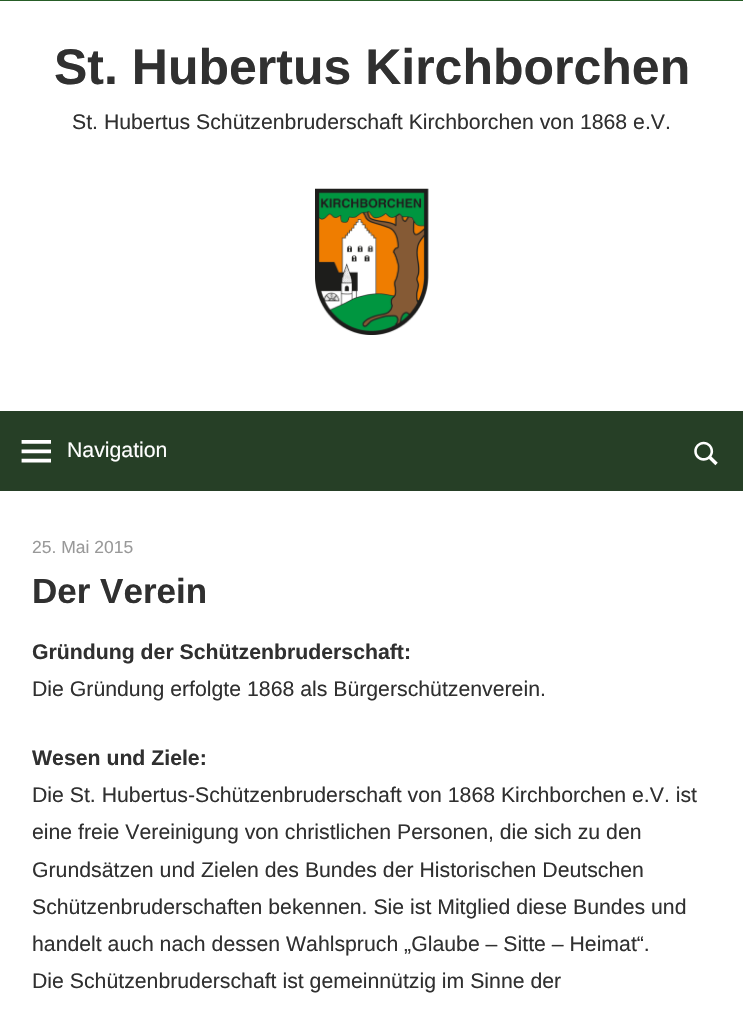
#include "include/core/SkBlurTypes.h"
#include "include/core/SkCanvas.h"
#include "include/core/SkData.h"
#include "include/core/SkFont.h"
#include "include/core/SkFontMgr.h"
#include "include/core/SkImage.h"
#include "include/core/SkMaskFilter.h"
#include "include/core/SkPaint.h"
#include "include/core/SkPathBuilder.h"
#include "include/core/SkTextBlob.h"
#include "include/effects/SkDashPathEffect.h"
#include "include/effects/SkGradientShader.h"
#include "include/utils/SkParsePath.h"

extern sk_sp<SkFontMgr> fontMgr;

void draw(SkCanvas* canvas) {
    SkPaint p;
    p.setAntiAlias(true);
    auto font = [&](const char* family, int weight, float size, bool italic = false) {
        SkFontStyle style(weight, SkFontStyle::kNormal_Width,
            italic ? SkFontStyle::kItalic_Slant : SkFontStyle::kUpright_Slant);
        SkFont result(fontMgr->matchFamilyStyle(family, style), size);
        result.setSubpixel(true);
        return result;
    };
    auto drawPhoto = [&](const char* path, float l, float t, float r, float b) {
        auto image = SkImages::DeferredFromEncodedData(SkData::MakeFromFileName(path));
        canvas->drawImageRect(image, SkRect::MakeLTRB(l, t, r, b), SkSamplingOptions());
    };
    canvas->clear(0xFF265D26);
    p.setColor(0xFFFFFFFF);
    canvas->drawRect(SkRect::MakeLTRB(0, 1, 743, 1016), p);
    auto font1 = font("Liberation Sans", 700, 50);
    p.setColor(0xFF303030);
    canvas->drawString("St. Hubertus Kirchborchen", 54, 84, font1, p);
    auto font2 = font("Liberation Sans", 400, 21.25f);
    canvas->drawString("St. Hubertus Schützenbruderschaft Kirchborchen von 1868 e.V.", 72, 129, font2, p);
    drawPhoto("media/1.png", 315, 188, 429, 335);
    p.setColor(0xFF263F26);
    canvas->drawRect(SkRect::MakeLTRB(0, 411, 743, 491), p);
    drawPhoto("media/2.png", 21, 440, 51, 463);
    p.setColor(0xFFFFFFFF);
    canvas->drawString("Navigation", 67, 457, font2, p);
    drawPhoto("media/3.png", 694, 441, 718, 466);
    auto font3 = font("Liberation Sans", 400, 17.5f);
    p.setColor(0xFF999999);
    canvas->drawString("25. Mai 2015", 32, 553, font3, p);
    auto font4 = font("Liberation Sans", 700, 35);
    p.setColor(0xFF303030);
    canvas->drawString("Der Verein", 32, 603, font4, p);
    auto font5 = font("Liberation Sans", 700, 21.25f);
    canvas->drawString("Gründung der Schützenbruderschaft:", 32, 659, font5, p);
    canvas->drawString("Die Gründung erfolgte 1868 als Bürgerschützenverein.", 32, 696, font2, p);
    canvas->drawString("Wesen und Ziele:", 32, 765, font5, p);
    {
        const struct { const char* s; float x, y; } items[] = {
            {"Die St. Hubertus-Schützenbruderschaft von 1868 Kirchborchen e.V. ist", 32, 802},
            {"eine freie Vereinigung von christlichen Personen, die sich zu den", 32, 839},
            {"Grundsätzen und Zielen des Bundes der Historischen Deutschen", 32, 877},
            {"Schützenbruderschaften bekennen. Sie ist Mitglied diese Bundes und", 32, 914},
            {"handelt auch nach dessen Wahlspruch „Glaube – Sitte – Heimat“.", 32, 951},
            {"Die Schützenbruderschaft ist gemeinnützig im Sinne der", 32, 988},
        };
        for (auto [s, x, y] : items) {
            canvas->drawString(s, x, y, font2, p);
        }
    }
}
